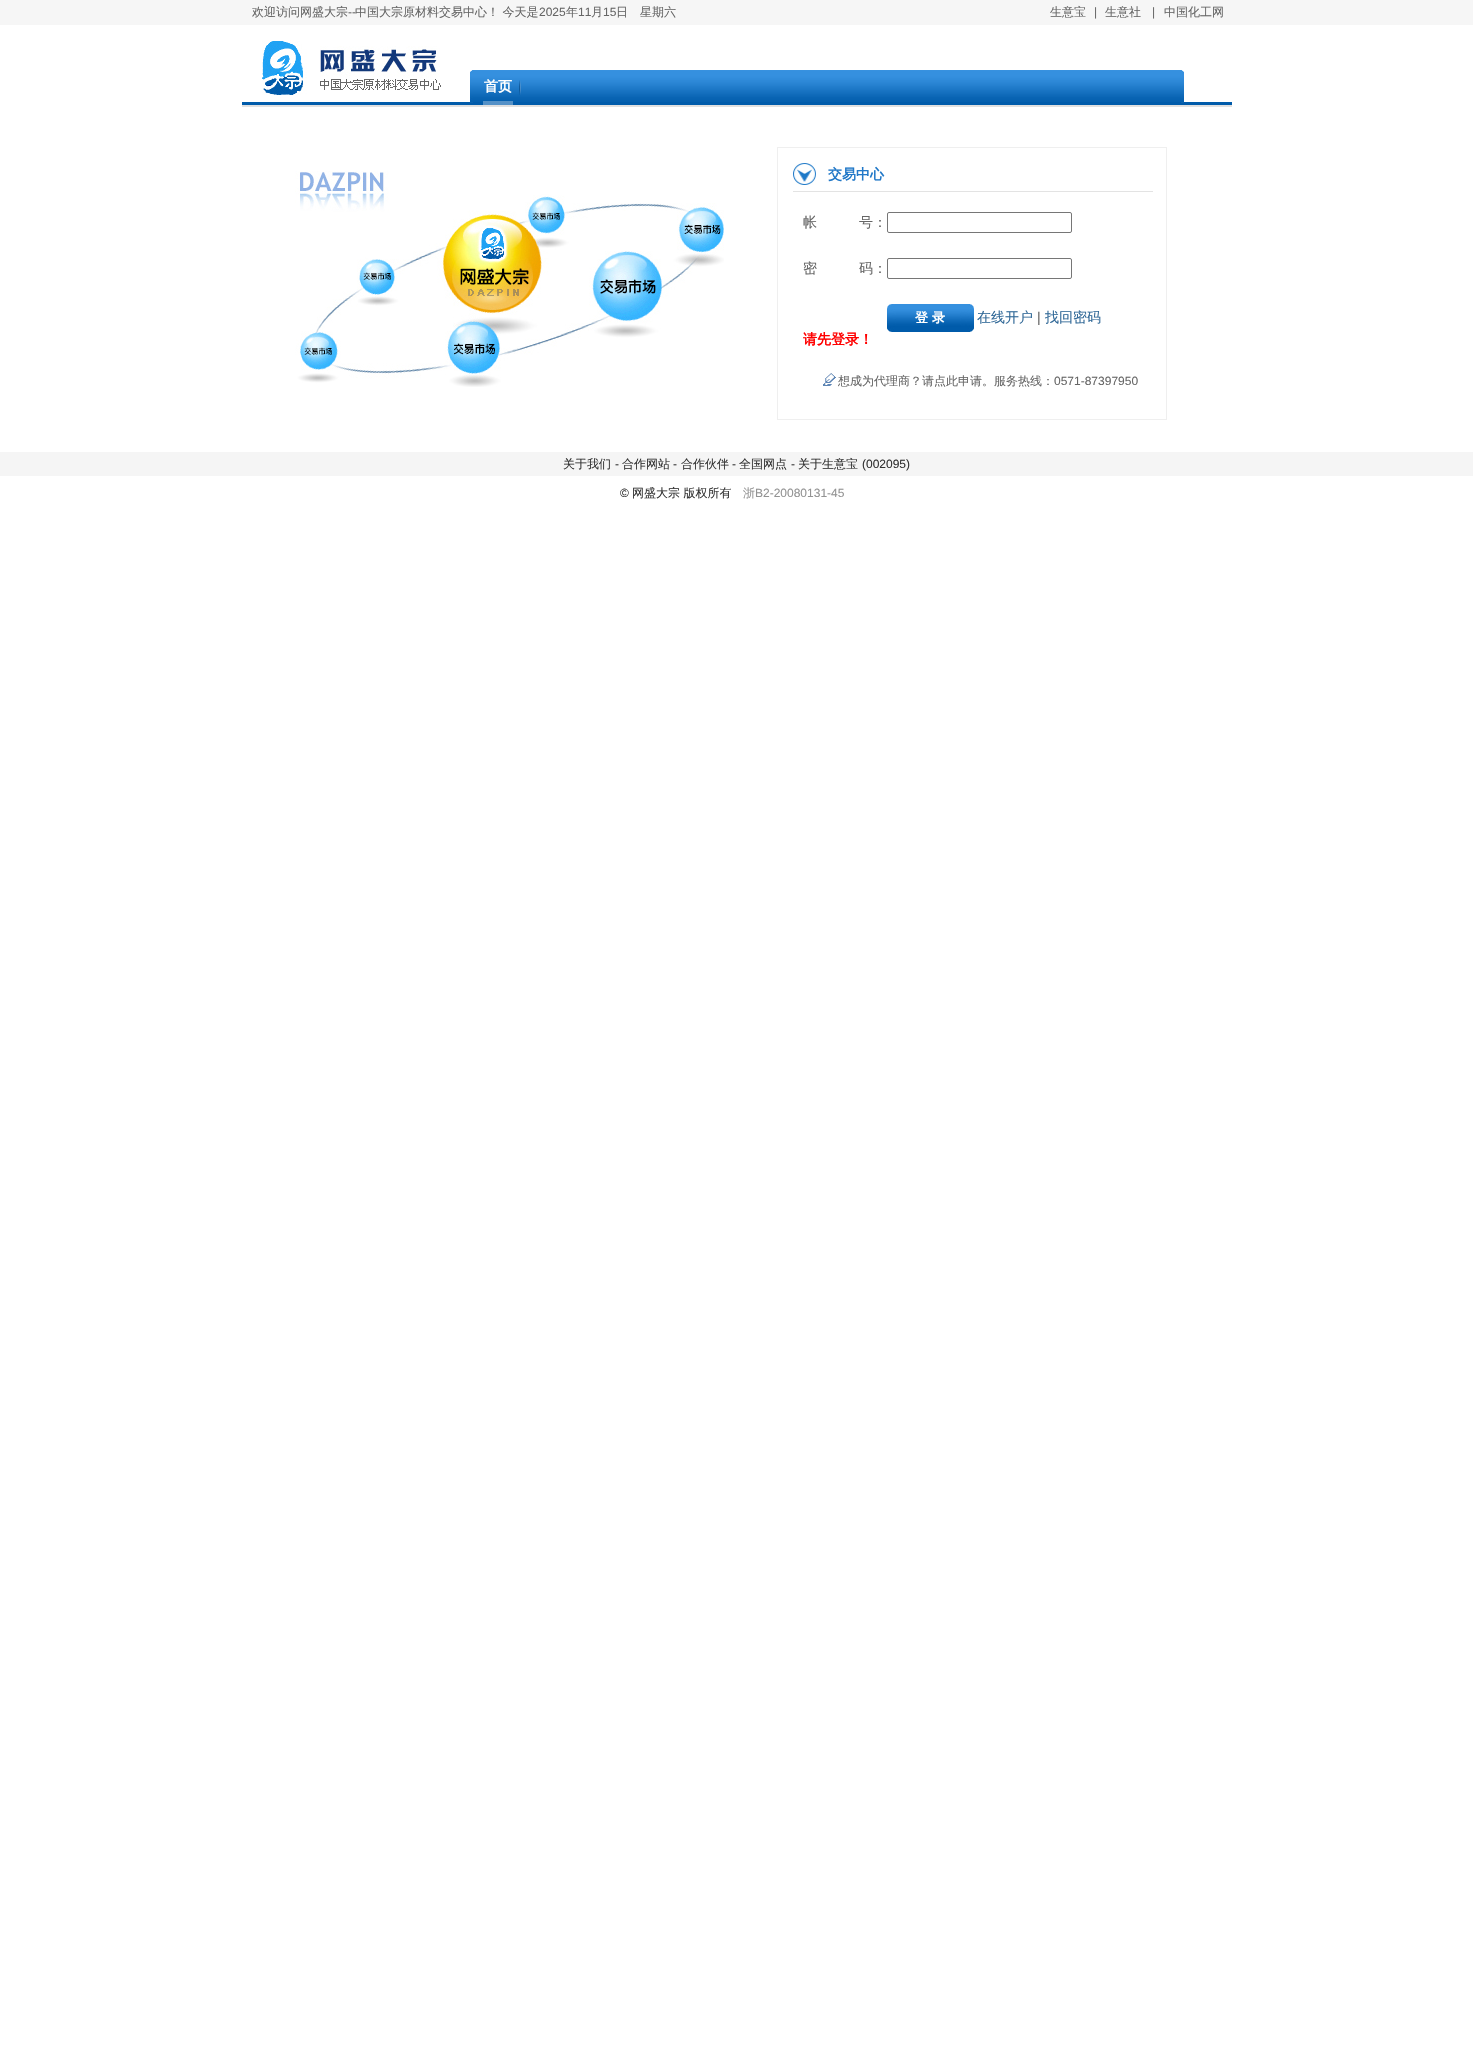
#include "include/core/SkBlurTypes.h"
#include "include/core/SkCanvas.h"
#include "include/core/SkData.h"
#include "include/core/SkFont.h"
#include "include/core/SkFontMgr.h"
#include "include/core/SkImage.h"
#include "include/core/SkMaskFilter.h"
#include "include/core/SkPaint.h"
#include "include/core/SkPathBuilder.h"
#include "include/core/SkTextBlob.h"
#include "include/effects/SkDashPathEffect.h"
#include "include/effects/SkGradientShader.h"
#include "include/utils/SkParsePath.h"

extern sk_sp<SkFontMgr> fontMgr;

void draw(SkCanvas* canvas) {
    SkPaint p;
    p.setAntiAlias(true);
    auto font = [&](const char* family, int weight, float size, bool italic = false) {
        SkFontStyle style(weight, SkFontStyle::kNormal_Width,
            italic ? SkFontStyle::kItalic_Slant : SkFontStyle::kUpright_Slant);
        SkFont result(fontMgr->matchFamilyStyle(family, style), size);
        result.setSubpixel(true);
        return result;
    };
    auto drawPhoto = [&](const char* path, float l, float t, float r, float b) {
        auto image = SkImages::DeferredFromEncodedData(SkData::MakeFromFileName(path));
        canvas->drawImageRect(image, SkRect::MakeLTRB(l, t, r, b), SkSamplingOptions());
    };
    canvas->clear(0xFFFFFFFF);
    p.setColor(0xFFF6F6F6);
    canvas->drawRect(SkRect::MakeLTRB(0, 0, 1473, 25), p);
    auto font1 = font("WenQuanYi Zen Hei", 500, 12);
    p.setColor(0xFF666666);
    canvas->drawString("欢迎访问网盛大宗", 252, 16, font1, p);
    auto font2 = font("Liberation Sans", 400, 12);
    canvas->drawString("--", 348, 16, font2, p);
    canvas->drawString("中国大宗原材料交易中心！ 今天是", 355, 16, font1, p);
    canvas->drawString("2025", 539, 16, font2, p);
    canvas->drawString("年", 566, 16, font1, p);
    canvas->drawString("11", 578, 16, font2, p);
    canvas->drawString("月", 591, 16, font1, p);
    canvas->drawString("15", 603, 16, font2, p);
    canvas->drawString("日　星期六", 616, 16, font1, p);
    canvas->drawString("生意宝", 1050, 16, font1, p);
    canvas->drawString("|", 1094, 16, font2, p);
    canvas->drawString("生意社", 1105, 16, font1, p);
    canvas->drawString("|", 1152, 16, font2, p);
    canvas->drawString("中国化工网", 1164, 16, font1, p);
    drawPhoto("media/1.png", 242, 102, 1232, 107);
    drawPhoto("media/2.png", 306, 40, 307, 95);
    drawPhoto("media/3.png", 262, 40, 306, 95);
    drawPhoto("media/4.png", 320, 46, 441, 90);
    drawPhoto("media/5.png", 470, 70, 473, 103);
    drawPhoto("media/6.png", 473, 70, 1181, 102);
    drawPhoto("media/7.png", 519, 80, 521, 95);
    p.setColor(0xFF5491C7);
    canvas->drawRect(SkRect::MakeLTRB(483, 101, 513, 105), p);
    auto font3 = font("WenQuanYi Zen Hei", 700, 14);
    p.setColor(0xFFFFFFFF);
    canvas->drawString("首页", 484, 91, font3, p);
    drawPhoto("media/8.png", 1181, 70, 1184, 103);
    drawPhoto("media/9.png", 295, 171, 724, 387);
    p.setStyle(SkPaint::kStroke_Style);
    p.setStrokeWidth(1);
    p.setColor(0xFFEFEFEF);
    canvas->drawRect(SkRect::MakeLTRB(777.5f, 147.5f, 1166.5f, 419.5f), p);
    drawPhoto("media/10.png", 793, 163, 816, 185);
    p.setStyle(SkPaint::kFill_Style);
    p.setColor(0xFFE3E3E3);
    canvas->drawRect(SkRect::MakeLTRB(793, 191, 1153, 192), p);
    p.setColor(0xFF2178C8);
    canvas->drawString("交易中心", 828, 179, font3, p);
    auto font4 = font("WenQuanYi Zen Hei", 500, 14);
    p.setColor(0xFF666666);
    canvas->drawString("帐　　　号：", 803, 227, font4, p);
    p.setStyle(SkPaint::kStroke_Style);
    p.setColor(0xFF767676);
    canvas->drawRoundRect(SkRect::MakeLTRB(887.5f, 212.5f, 1071.5f, 232.5f), 1.5f, 1.5f, p);
    p.setStyle(SkPaint::kFill_Style);
    p.setColor(0xFF666666);
    canvas->drawString("密　　　码：", 803, 273, font4, p);
    p.setStyle(SkPaint::kStroke_Style);
    p.setColor(0xFF767676);
    canvas->drawRoundRect(SkRect::MakeLTRB(887.5f, 258.5f, 1071.5f, 278.5f), 1.5f, 1.5f, p);
    drawPhoto("media/11.png", 887, 304, 974, 332);
    auto font5 = font("WenQuanYi Zen Hei", 700, 13);
    p.setStyle(SkPaint::kFill_Style);
    p.setColor(0xFFFFFFFF);
    canvas->drawString("登 录", 915, 322, font5, p);
    p.setColor(0xFF306897);
    canvas->drawString("在线开户", 977, 322, font4, p);
    auto font6 = font("Liberation Sans", 400, 14);
    p.setColor(0xFF666666);
    canvas->drawString("|", 1037, 322, font6, p);
    p.setColor(0xFF306897);
    canvas->drawString("找回密码", 1045, 322, font4, p);
    p.setColor(0xFFFF0000);
    canvas->drawString("请先登录！", 803, 344, font3, p);
    drawPhoto("media/12.png", 823, 373, 836, 386);
    p.setColor(0xFF666666);
    canvas->drawString("想成为代理商？请点此申请。服务热线：", 838, 385, font1, p);
    canvas->drawString("0571-87397950", 1054, 385, font2, p);
    p.setColor(0xFFF5F5F5);
    canvas->drawRect(SkRect::MakeLTRB(0, 452, 1473, 476), p);
    p.setColor(0xFF333333);
    canvas->drawString("关于我们", 563, 468, font1, p);
    canvas->drawString("-", 615, 468, font2, p);
    canvas->drawString("合作网站", 622, 468, font1, p);
    canvas->drawString("-", 673, 468, font2, p);
    canvas->drawString("合作伙伴", 681, 468, font1, p);
    canvas->drawString("-", 732, 468, font2, p);
    canvas->drawString("全国网点", 739, 468, font1, p);
    canvas->drawString("-", 791, 468, font2, p);
    canvas->drawString("关于生意宝", 798, 468, font1, p);
    canvas->drawString("(002095)", 862, 468, font2, p);
    canvas->drawString("©", 620, 497, font2, p);
    canvas->drawString("网盛大宗 版权所有", 632, 497, font1, p);
    p.setColor(0xFF939393);
    canvas->drawString("浙", 743, 497, font1, p);
    canvas->drawString("B2-20080131-45", 755, 497, font2, p);
}
